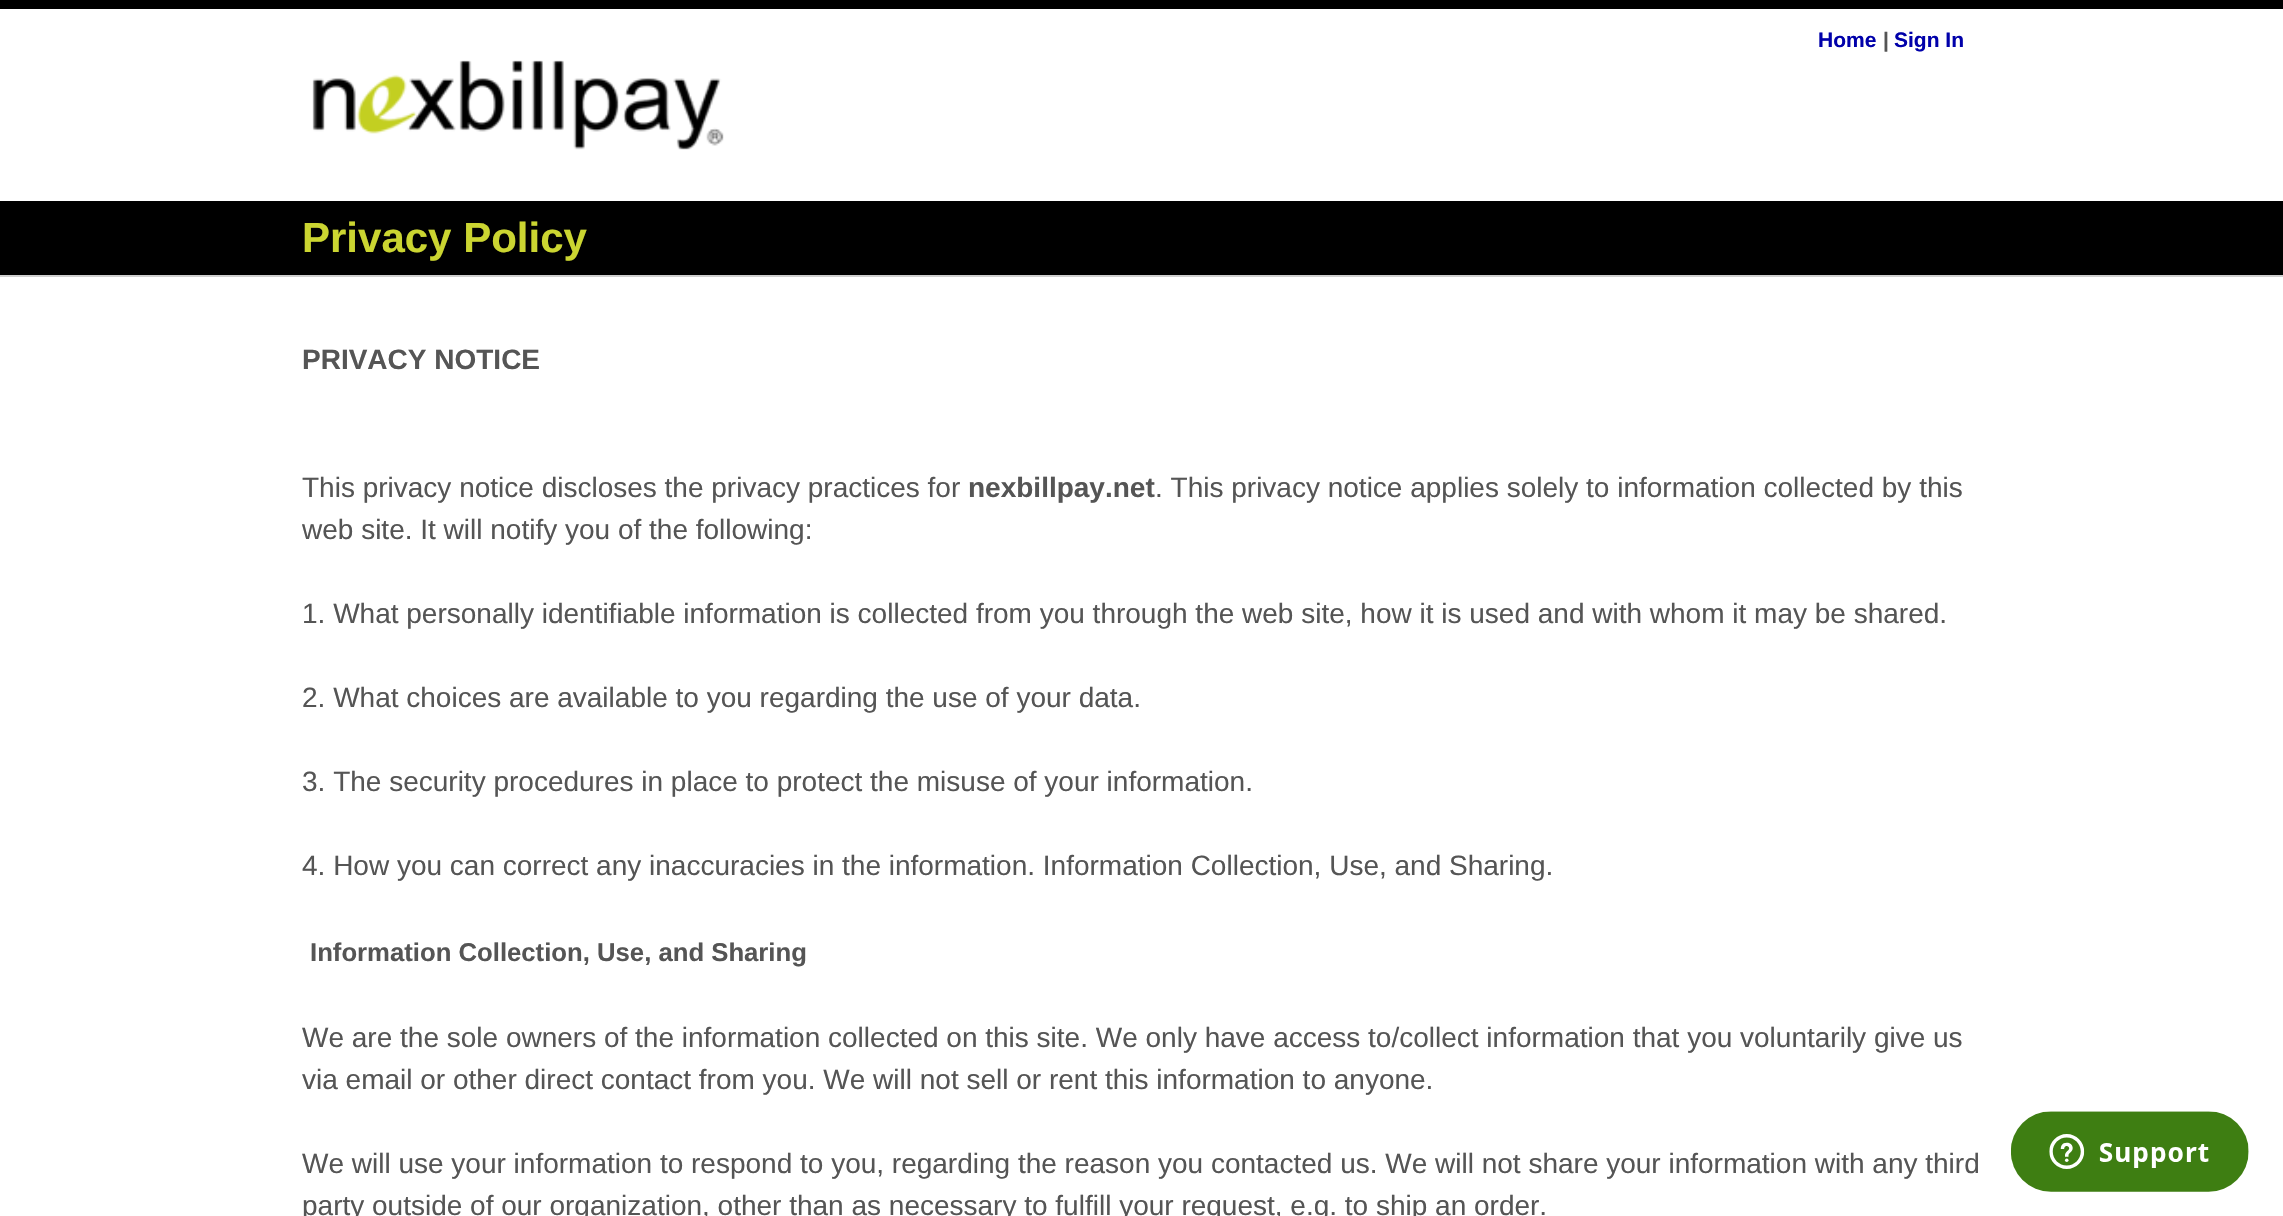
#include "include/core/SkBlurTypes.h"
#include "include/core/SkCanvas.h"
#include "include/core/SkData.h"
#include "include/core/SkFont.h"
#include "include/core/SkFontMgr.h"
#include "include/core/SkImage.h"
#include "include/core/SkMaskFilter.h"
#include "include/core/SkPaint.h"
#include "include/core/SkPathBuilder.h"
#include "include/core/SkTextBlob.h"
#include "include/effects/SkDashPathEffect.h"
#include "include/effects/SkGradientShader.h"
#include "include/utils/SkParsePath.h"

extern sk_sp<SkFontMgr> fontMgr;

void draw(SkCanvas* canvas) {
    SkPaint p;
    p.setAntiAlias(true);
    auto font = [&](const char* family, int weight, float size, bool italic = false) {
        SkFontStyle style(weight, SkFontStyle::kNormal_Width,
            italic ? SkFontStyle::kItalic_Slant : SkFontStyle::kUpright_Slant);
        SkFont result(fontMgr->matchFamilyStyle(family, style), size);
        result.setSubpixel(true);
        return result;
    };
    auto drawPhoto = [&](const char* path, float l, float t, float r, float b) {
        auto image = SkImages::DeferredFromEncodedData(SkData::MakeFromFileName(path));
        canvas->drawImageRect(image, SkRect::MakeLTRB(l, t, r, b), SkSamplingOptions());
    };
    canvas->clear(0xFFFFFFFF);
    p.setColor(0xFF000000);
    canvas->drawRect(SkRect::MakeLTRB(0, 0, 2283, 9), p);
    auto font1 = font("Liberation Sans", 700, 21);
    p.setColor(0xFF0000AA);
    canvas->drawString("Home", 1818, 47, font1, p);
    p.setColor(0xFF555555);
    canvas->drawString("|", 1883, 47, font1, p);
    p.setColor(0xFF0000AA);
    canvas->drawString("Sign In", 1894, 47, font1, p);
    drawPhoto("media/1.png", 312, 60, 724, 150);
    p.setColor(0xFF000000);
    canvas->drawRect(SkRect::MakeLTRB(0, 201, 2283, 275), p);
    p.setColor(0xFFCFCFCF);
    canvas->drawRect(SkRect::MakeLTRB(0, 275, 2283, 277), p);
    auto font2 = font("Liberation Sans", 700, 42);
    p.setColor(0xFFCBD531);
    canvas->drawString("Privacy Policy", 302, 252, font2, p);
    auto font3 = font("Liberation Sans", 700, 28);
    p.setColor(0xFF555555);
    canvas->drawString("PRIVACY NOTICE", 302, 369, font3, p);
    auto font4 = font("Liberation Sans", 400, 28);
    canvas->drawString("This privacy notice discloses the privacy practices for", 302, 497, font4, p);
    canvas->drawString("nexbillpay.net", 968, 497, font3, p);
    {
        const struct { const char* s; float x, y; } items[] = {
            {". This privacy notice applies solely to information collected by this", 1155, 497},
            {"web site. It will notify you of the following:", 302, 539},
            {"1. What personally identifiable information is collected from you through the web site, how it is used and with whom it may be shared.", 302, 623},
            {"2. What choices are available to you regarding the use of your data.", 302, 707},
            {"3. The security procedures in place to protect the misuse of your information.", 302, 791},
            {"4. How you can correct any inaccuracies in the information. Information Collection, Use, and Sharing.", 302, 875},
        };
        for (auto [s, x, y] : items) {
            canvas->drawString(s, x, y, font4, p);
        }
    }
    auto font5 = font("Liberation Sans", 700, 25.7f);
    canvas->drawString("Information Collection, Use, and Sharing", 310, 961, font5, p);
    {
        const struct { const char* s; float x, y; } items[] = {
            {"We are the sole owners of the information collected on this site. We only have access to/collect information that you voluntarily give us", 302, 1047},
            {"via email or other direct contact from you. We will not sell or rent this information to anyone.", 302, 1089},
            {"We will use your information to respond to you, regarding the reason you contacted us. We will not share your information with any third", 302, 1173},
            {"party outside of our organization, other than as necessary to fulfill your request, e.g. to ship an order.", 302, 1215},
        };
        for (auto [s, x, y] : items) {
            canvas->drawString(s, x, y, font4, p);
        }
    }
    drawPhoto("media/2.png", 2011, 1111, 2249, 1192);
}
